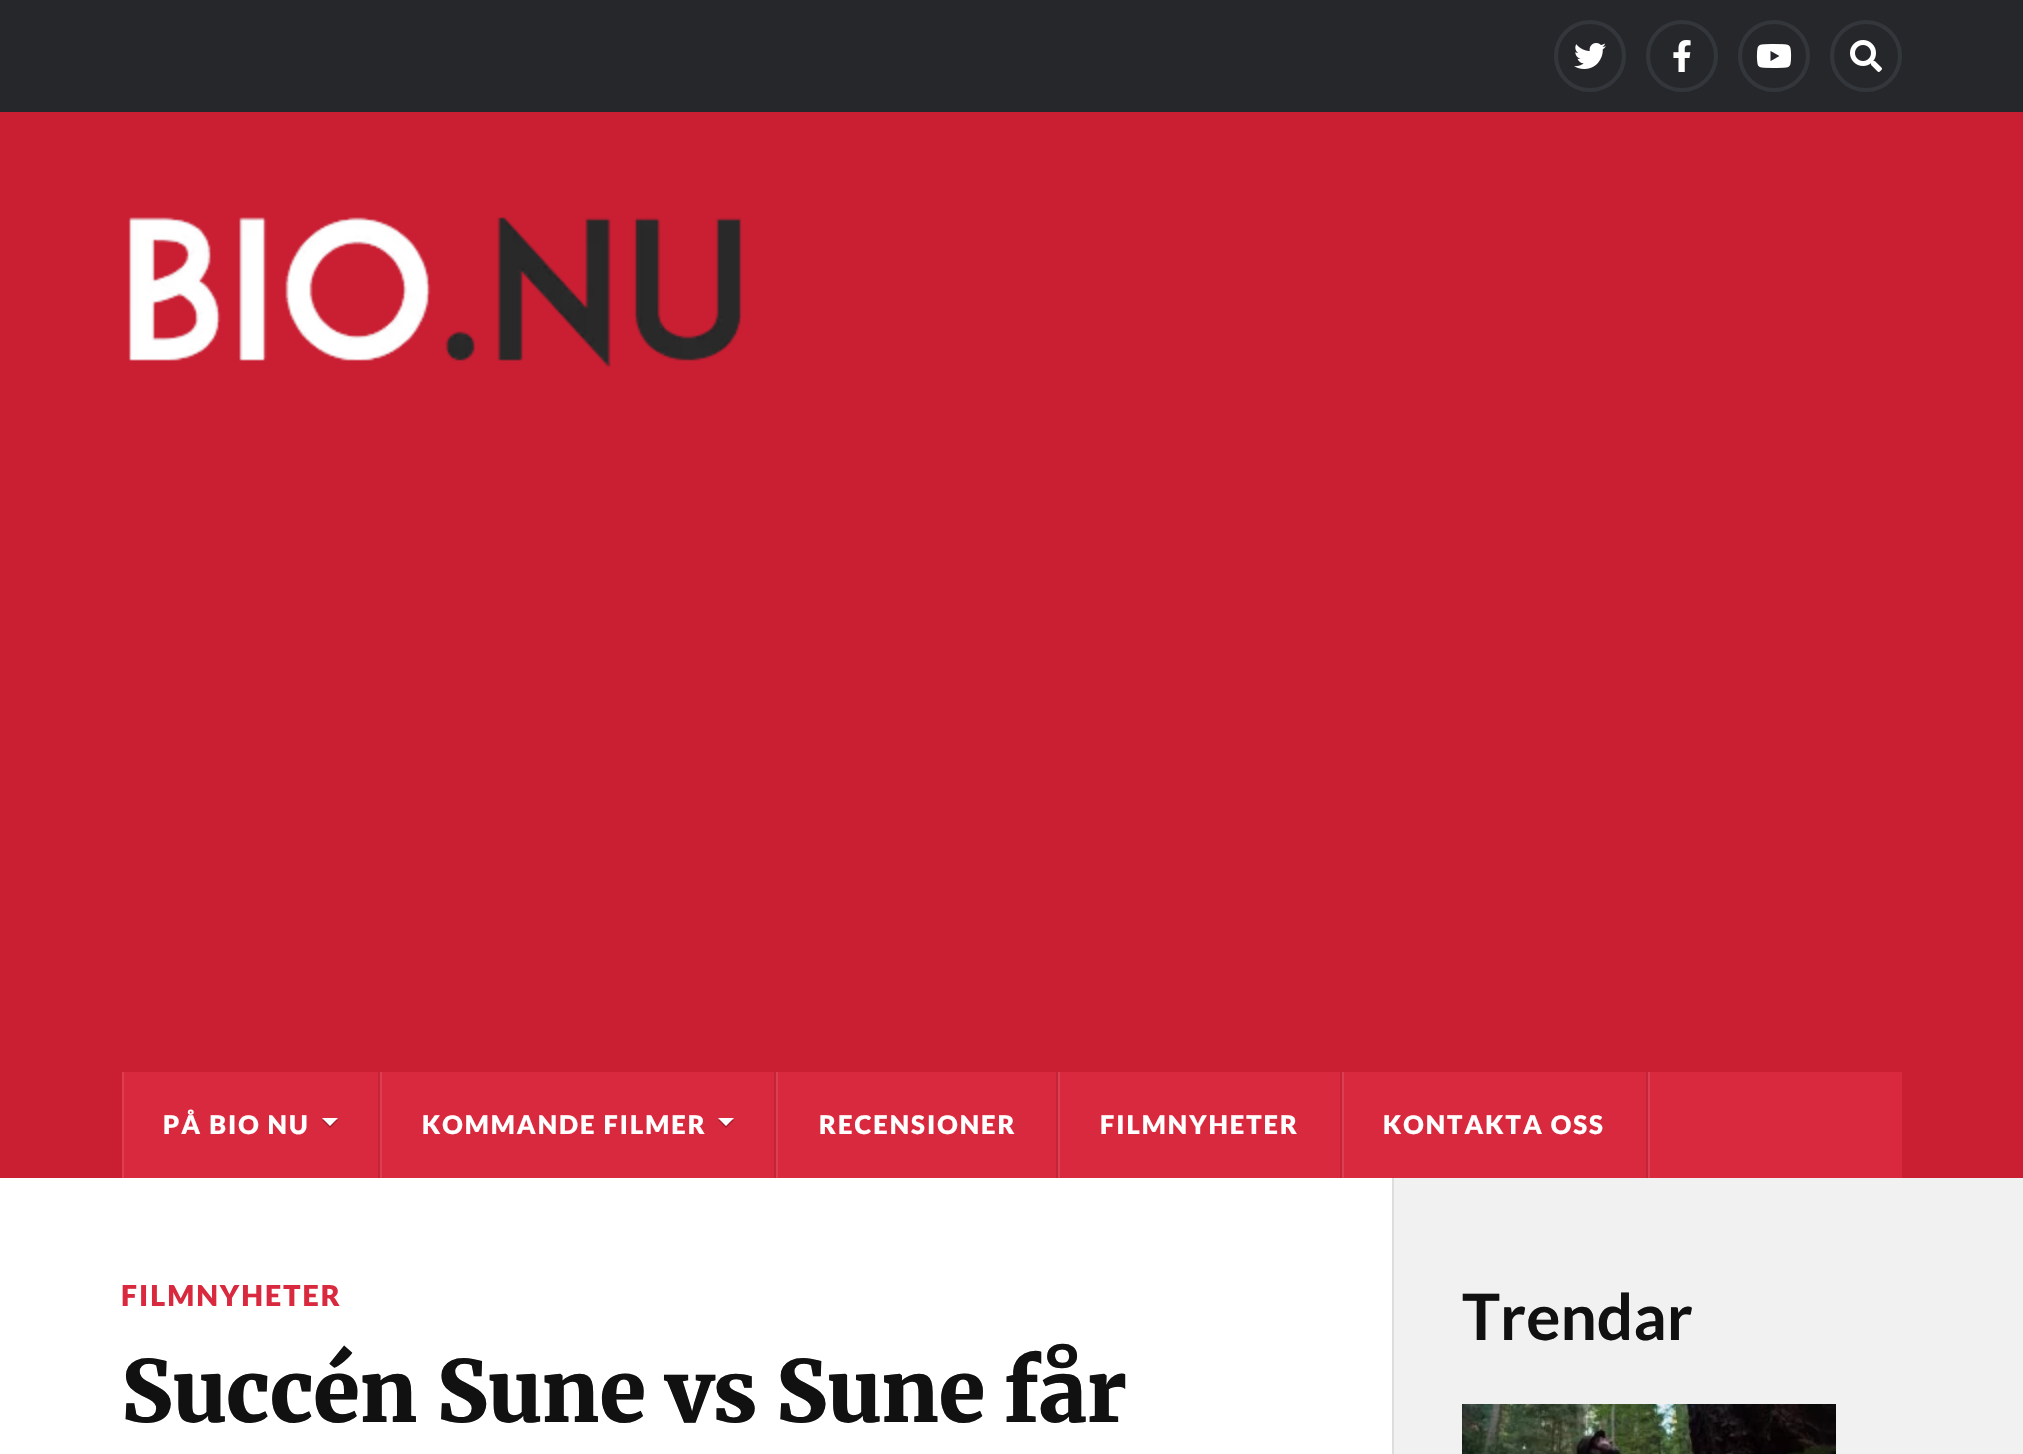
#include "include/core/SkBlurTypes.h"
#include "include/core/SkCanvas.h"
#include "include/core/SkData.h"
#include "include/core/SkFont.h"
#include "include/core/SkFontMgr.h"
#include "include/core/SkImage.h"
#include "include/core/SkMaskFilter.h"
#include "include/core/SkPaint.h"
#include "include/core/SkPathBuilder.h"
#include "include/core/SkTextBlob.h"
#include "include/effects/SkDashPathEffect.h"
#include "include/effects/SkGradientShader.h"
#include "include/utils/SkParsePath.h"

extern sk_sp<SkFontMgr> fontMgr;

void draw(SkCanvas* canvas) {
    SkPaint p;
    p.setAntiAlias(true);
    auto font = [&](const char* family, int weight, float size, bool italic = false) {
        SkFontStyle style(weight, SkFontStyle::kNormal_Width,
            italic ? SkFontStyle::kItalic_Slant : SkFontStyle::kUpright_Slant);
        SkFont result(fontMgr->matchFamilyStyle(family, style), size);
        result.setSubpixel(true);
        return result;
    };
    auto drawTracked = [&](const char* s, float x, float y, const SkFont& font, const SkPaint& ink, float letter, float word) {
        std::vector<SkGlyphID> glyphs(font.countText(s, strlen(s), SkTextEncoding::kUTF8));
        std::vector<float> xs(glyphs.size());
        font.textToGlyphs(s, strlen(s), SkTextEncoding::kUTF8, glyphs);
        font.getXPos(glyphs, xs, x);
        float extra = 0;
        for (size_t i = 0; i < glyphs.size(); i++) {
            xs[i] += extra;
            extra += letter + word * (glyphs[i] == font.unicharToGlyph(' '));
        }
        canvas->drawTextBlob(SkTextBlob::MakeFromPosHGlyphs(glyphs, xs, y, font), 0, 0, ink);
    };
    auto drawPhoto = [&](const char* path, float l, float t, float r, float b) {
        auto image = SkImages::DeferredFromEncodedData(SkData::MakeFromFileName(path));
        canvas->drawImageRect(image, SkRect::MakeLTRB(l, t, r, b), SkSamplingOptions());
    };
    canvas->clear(0xFFF1F1F1);
    p.setColor(0xFF26272B);
    canvas->drawRect(SkRect::MakeLTRB(0, 0, 2023, 112), p);
    p.setStyle(SkPaint::kStroke_Style);
    p.setStrokeWidth(4);
    p.setColor(0xFF33363B);
    canvas->drawCircle(1590, 56, 34, p);
    drawPhoto("media/1.png", 1574, 43, 1606, 69);
    canvas->drawCircle(1682, 56, 34, p);
    drawPhoto("media/2.png", 1673, 40, 1691, 72);
    canvas->drawCircle(1774, 56, 34, p);
    drawPhoto("media/3.png", 1756, 44, 1792, 68);
    canvas->drawCircle(1866, 56, 34, p);
    drawPhoto("media/4.png", 1850, 40, 1882, 72);
    p.setStyle(SkPaint::kFill_Style);
    p.setColor(0xFFCA1E33);
    canvas->drawRect(SkRect::MakeLTRB(0, 112, 2023, 1178), p);
    drawPhoto("media/5.png", 128, 217, 742, 368);
    {
        const struct { float l, t, r, b; SkColor color; } items[] = {
            {124, 1072, 1902, 1178, 0xFFD9293E},
            {378, 1072, 380, 1178, 0xFFC32538},
            {122, 1072, 124, 1178, 0xFFDD3E51},
        };
        for (auto [l, t, r, b, color] : items) {
            p.setColor(color);
            canvas->drawRect(SkRect::MakeLTRB(l, t, r, b), p);
        }
    }
    auto font1 = font("Lato", 900, 25.6f);
    p.setColor(0xFFFFFFFF);
    drawTracked("PÅ BIO NU", 163, 1134, font1, p, 2, 0);
    p.setColor(0xFFA31F2F);
    canvas->drawPath(SkPathBuilder().moveTo(322, 1120).lineTo(338, 1120).lineTo(330, 1128).close().detach(), p);
    p.setColor(0xFFFFFFFF);
    canvas->drawPath(SkPathBuilder().moveTo(322, 1118).lineTo(338, 1118).lineTo(330, 1126).close().detach(), p);
    p.setColor(0xFFC32538);
    canvas->drawRect(SkRect::MakeLTRB(774, 1072, 776, 1178), p);
    p.setColor(0xFFDD3E51);
    canvas->drawRect(SkRect::MakeLTRB(380, 1072, 382, 1178), p);
    p.setColor(0xFFFFFFFF);
    drawTracked("KOMMANDE FILMER", 422, 1134, font1, p, 2, 0);
    p.setColor(0xFFA31F2F);
    canvas->drawPath(SkPathBuilder().moveTo(718, 1120).lineTo(734, 1120).lineTo(726, 1128).close().detach(), p);
    p.setColor(0xFFFFFFFF);
    canvas->drawPath(SkPathBuilder().moveTo(718, 1118).lineTo(734, 1118).lineTo(726, 1126).close().detach(), p);
    p.setColor(0xFFC32538);
    canvas->drawRect(SkRect::MakeLTRB(1056, 1072, 1058, 1178), p);
    p.setColor(0xFFDD3E51);
    canvas->drawRect(SkRect::MakeLTRB(776, 1072, 778, 1178), p);
    p.setColor(0xFFFFFFFF);
    drawTracked("RECENSIONER", 819, 1134, font1, p, 2, 0);
    p.setColor(0xFFC32538);
    canvas->drawRect(SkRect::MakeLTRB(1340, 1072, 1342, 1178), p);
    p.setColor(0xFFDD3E51);
    canvas->drawRect(SkRect::MakeLTRB(1058, 1072, 1060, 1178), p);
    p.setColor(0xFFFFFFFF);
    drawTracked("FILMNYHETER", 1100, 1134, font1, p, 2, 0);
    p.setColor(0xFFC32538);
    canvas->drawRect(SkRect::MakeLTRB(1646, 1072, 1648, 1178), p);
    p.setColor(0xFFDD3E51);
    canvas->drawRect(SkRect::MakeLTRB(1342, 1072, 1344, 1178), p);
    p.setColor(0xFFFFFFFF);
    drawTracked("KONTAKTA OSS", 1383, 1134, font1, p, 2, 0);
    p.setColor(0xFFDD3E51);
    canvas->drawRect(SkRect::MakeLTRB(1648, 1072, 1650, 1178), p);
    p.setColor(0xFFFFFFFF);
    canvas->drawRect(SkRect::MakeLTRB(0, 1178, 1392, 1454), p);
    auto font2 = font("Lato", 900, 28.75f);
    p.setColor(0xFFD9293E);
    drawTracked("FILMNYHETER", 121, 1306, font2, p, 2, 0);
    auto font3 = font("Merriweather", 900, 85);
    p.setColor(0xFF111111);
    drawTracked("Succén Sune vs Sune får", 121, 1422, font3, p, -0.85f, 0);
    p.setColor(0xFFDDDDDD);
    canvas->drawRect(SkRect::MakeLTRB(1392, 1178, 1394, 1454), p);
    auto font4 = font("Lato", 700, 64);
    p.setColor(0xFF111111);
    canvas->drawString("Trendar", 1462, 1340, font4, p);
    drawPhoto("media/6.png", 1462, 1404, 1836, 1454);
}
